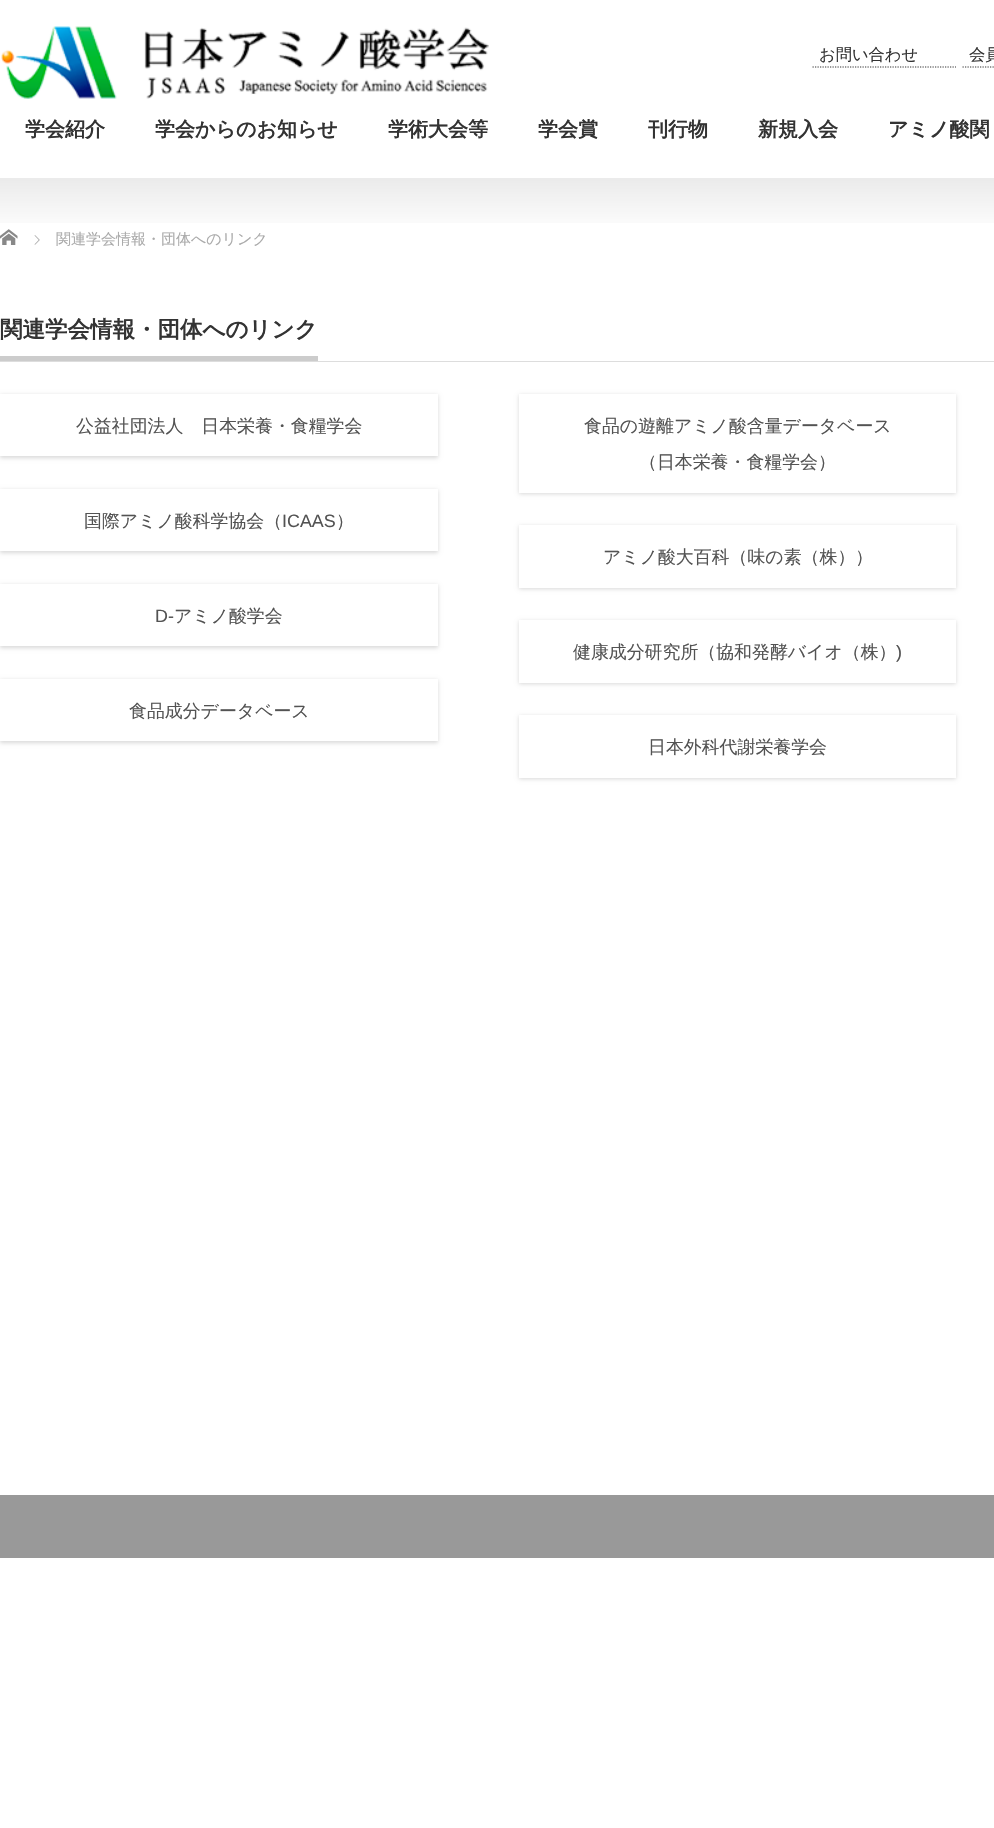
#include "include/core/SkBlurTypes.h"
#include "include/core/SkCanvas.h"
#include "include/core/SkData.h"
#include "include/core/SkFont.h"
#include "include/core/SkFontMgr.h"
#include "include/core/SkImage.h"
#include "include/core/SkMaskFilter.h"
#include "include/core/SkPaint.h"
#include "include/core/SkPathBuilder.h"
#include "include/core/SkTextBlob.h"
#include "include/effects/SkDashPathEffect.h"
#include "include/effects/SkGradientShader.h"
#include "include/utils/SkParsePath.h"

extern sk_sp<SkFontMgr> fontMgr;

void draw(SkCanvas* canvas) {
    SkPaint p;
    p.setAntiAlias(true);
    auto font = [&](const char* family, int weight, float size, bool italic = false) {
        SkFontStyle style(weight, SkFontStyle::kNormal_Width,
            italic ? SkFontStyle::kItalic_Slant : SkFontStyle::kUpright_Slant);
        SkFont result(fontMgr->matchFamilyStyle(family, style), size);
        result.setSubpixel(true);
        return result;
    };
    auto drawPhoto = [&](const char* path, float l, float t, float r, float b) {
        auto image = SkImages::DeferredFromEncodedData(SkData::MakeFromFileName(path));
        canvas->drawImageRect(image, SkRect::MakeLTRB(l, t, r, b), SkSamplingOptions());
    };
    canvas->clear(0xFFFFFFFF);
    drawPhoto("media/1.png", 1, 26, 489, 99);
    p.setStyle(SkPaint::kStroke_Style);
    p.setStrokeWidth(1.2f);
    p.setColor(0xFF333333);
    p.setPathEffect(SkDashPathEffect::Make({{1.25f, 1.25f}}, 0));
    canvas->drawPath(SkPathBuilder().moveTo(812.5f, 67).lineTo(956, 67).detach(), p);
    p.setPathEffect(nullptr);
    auto font1 = font("WenQuanYi Zen Hei", 500, 16.25f);
    p.setStyle(SkPaint::kFill_Style);
    canvas->drawString("お問い合わせ", 819, 60, font1, p);
    p.setStyle(SkPaint::kStroke_Style);
    p.setPathEffect(SkDashPathEffect::Make({{1.25f, 1.25f}}, 0));
    canvas->drawPath(SkPathBuilder().moveTo(962.5f, 67).lineTo(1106, 67).detach(), p);
    p.setPathEffect(nullptr);
    p.setStyle(SkPaint::kFill_Style);
    canvas->drawString("会員", 969, 60, font1, p);
    auto font2 = font("WenQuanYi Zen Hei", 700, 20);
    {
        const struct { const char* s; float x, y; } items[] = {
            {"学会紹介", 25, 136},
            {"学会からのお知らせ", 155, 136},
            {"学術大会等", 388, 136},
            {"学会賞", 538, 136},
            {"刊行物", 648, 136},
            {"新規入会", 758, 136},
            {"アミノ酸関", 888, 136},
        };
        for (auto [s, x, y] : items) {
            canvas->drawString(s, x, y, font2, p);
        }
    }
    drawPhoto("media/2.png", 0, 178, 994, 223);
    drawPhoto("media/3.png", 0, 229, 18, 245);
    drawPhoto("media/4.png", 34, 235, 40, 245);
    auto font3 = font("WenQuanYi Zen Hei", 500, 15);
    p.setColor(0xFFAAAAAA);
    canvas->drawString("関連学会情報・団体へのリンク", 56, 244, font3, p);
    p.setColor(0xFFDDDDDD);
    canvas->drawRect(SkRect::MakeLTRB(0, 361, 994, 362), p);
    p.setColor(0xFFCCCCCC);
    canvas->drawRect(SkRect::MakeLTRB(0, 356, 318, 361), p);
    auto font4 = font("WenQuanYi Zen Hei", 700, 22.5f);
    p.setColor(0xFF333333);
    canvas->drawString("関連学会情報・団体へのリンク", 0, 337, font4, p);
    p.setColor(0x26000000);
    p.setMaskFilter(SkMaskFilter::MakeBlur(kNormal_SkBlurStyle, 2));
    canvas->drawRect(SkRect::MakeLTRB(0, 395, 438, 458), p);
    p.setMaskFilter(nullptr);
    p.setColor(0xFFFFFFFF);
    canvas->drawRect(SkRect::MakeLTRB(0, 394, 438, 456), p);
    auto font5 = font("WenQuanYi Zen Hei", 500, 17.9f);
    p.setColor(0xFF535353);
    canvas->drawString("公益社団法人　日本栄養・食糧学会", 76, 432, font5, p);
    p.setColor(0x26000000);
    p.setMaskFilter(SkMaskFilter::MakeBlur(kNormal_SkBlurStyle, 2));
    canvas->drawRect(SkRect::MakeLTRB(0, 490, 438, 553), p);
    p.setMaskFilter(nullptr);
    p.setColor(0xFFFFFFFF);
    canvas->drawRect(SkRect::MakeLTRB(0, 489, 438, 551), p);
    p.setColor(0xFF535353);
    canvas->drawString("国際アミノ酸科学協会（", 84, 527, font5, p);
    auto font6 = font("Liberation Sans", 400, 17.9f);
    canvas->drawString("ICAAS", 282, 527, font6, p);
    canvas->drawString("）", 336, 527, font5, p);
    p.setColor(0x26000000);
    p.setMaskFilter(SkMaskFilter::MakeBlur(kNormal_SkBlurStyle, 2));
    canvas->drawRect(SkRect::MakeLTRB(0, 585, 438, 648), p);
    p.setMaskFilter(nullptr);
    p.setColor(0xFFFFFFFF);
    canvas->drawRect(SkRect::MakeLTRB(0, 584, 438, 646), p);
    p.setColor(0xFF535353);
    canvas->drawString("D-", 155, 622, font6, p);
    canvas->drawString("アミノ酸学会", 174, 622, font5, p);
    p.setColor(0x26000000);
    p.setMaskFilter(SkMaskFilter::MakeBlur(kNormal_SkBlurStyle, 2));
    canvas->drawRect(SkRect::MakeLTRB(0, 680, 438, 743), p);
    p.setMaskFilter(nullptr);
    p.setColor(0xFFFFFFFF);
    canvas->drawRect(SkRect::MakeLTRB(0, 679, 438, 741), p);
    p.setColor(0xFF535353);
    canvas->drawString("食品成分データベース", 129, 717, font5, p);
    p.setColor(0x26000000);
    p.setMaskFilter(SkMaskFilter::MakeBlur(kNormal_SkBlurStyle, 2));
    canvas->drawRect(SkRect::MakeLTRB(519, 395, 956, 494), p);
    p.setMaskFilter(nullptr);
    p.setColor(0xFFFFFFFF);
    canvas->drawRect(SkRect::MakeLTRB(519, 394, 956, 493), p);
    p.setColor(0xFF535353);
    canvas->drawString("食品の遊離アミノ酸含量データベース", 584, 432, font5, p);
    canvas->drawString("（日本栄養・食糧学会）", 639, 468, font5, p);
    p.setColor(0x26000000);
    p.setMaskFilter(SkMaskFilter::MakeBlur(kNormal_SkBlurStyle, 2));
    canvas->drawRect(SkRect::MakeLTRB(519, 526, 956, 589), p);
    p.setMaskFilter(nullptr);
    p.setColor(0xFFFFFFFF);
    canvas->drawRect(SkRect::MakeLTRB(519, 525, 956, 588), p);
    p.setColor(0xFF535353);
    canvas->drawString("アミノ酸大百科（味の素（株））", 603, 563, font5, p);
    p.setColor(0x26000000);
    p.setMaskFilter(SkMaskFilter::MakeBlur(kNormal_SkBlurStyle, 2));
    canvas->drawRect(SkRect::MakeLTRB(519, 621, 956, 684), p);
    p.setMaskFilter(nullptr);
    p.setColor(0xFFFFFFFF);
    canvas->drawRect(SkRect::MakeLTRB(519, 620, 956, 683), p);
    p.setColor(0xFF535353);
    canvas->drawString("健康成分研究所（協和発酵バイオ（株）", 573, 658, font5, p);
    canvas->drawString(")", 896, 658, font6, p);
    p.setColor(0x26000000);
    p.setMaskFilter(SkMaskFilter::MakeBlur(kNormal_SkBlurStyle, 2));
    canvas->drawRect(SkRect::MakeLTRB(519, 716, 956, 779), p);
    p.setMaskFilter(nullptr);
    p.setColor(0xFFFFFFFF);
    canvas->drawRect(SkRect::MakeLTRB(519, 715, 956, 778), p);
    p.setColor(0xFF535353);
    canvas->drawString("日本外科代謝栄養学会", 648, 753, font5, p);
    p.setColor(0xFF999999);
    canvas->drawRect(SkRect::MakeLTRB(0, 1495, 994, 1558), p);
}
